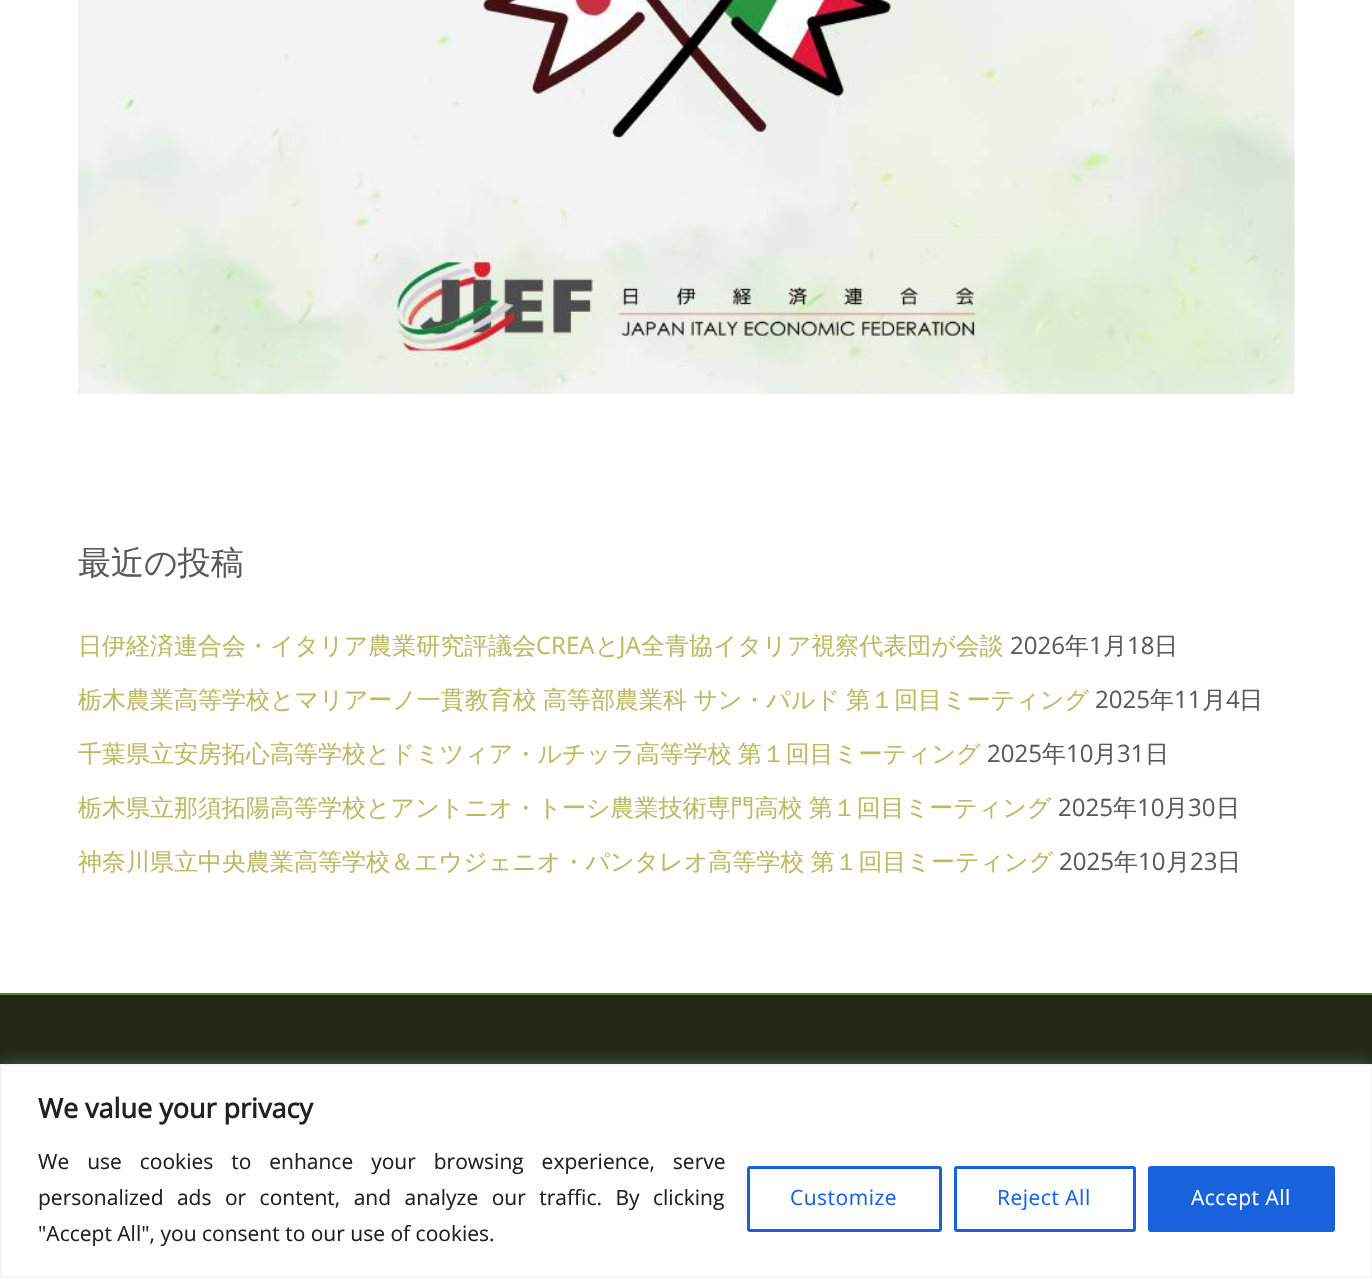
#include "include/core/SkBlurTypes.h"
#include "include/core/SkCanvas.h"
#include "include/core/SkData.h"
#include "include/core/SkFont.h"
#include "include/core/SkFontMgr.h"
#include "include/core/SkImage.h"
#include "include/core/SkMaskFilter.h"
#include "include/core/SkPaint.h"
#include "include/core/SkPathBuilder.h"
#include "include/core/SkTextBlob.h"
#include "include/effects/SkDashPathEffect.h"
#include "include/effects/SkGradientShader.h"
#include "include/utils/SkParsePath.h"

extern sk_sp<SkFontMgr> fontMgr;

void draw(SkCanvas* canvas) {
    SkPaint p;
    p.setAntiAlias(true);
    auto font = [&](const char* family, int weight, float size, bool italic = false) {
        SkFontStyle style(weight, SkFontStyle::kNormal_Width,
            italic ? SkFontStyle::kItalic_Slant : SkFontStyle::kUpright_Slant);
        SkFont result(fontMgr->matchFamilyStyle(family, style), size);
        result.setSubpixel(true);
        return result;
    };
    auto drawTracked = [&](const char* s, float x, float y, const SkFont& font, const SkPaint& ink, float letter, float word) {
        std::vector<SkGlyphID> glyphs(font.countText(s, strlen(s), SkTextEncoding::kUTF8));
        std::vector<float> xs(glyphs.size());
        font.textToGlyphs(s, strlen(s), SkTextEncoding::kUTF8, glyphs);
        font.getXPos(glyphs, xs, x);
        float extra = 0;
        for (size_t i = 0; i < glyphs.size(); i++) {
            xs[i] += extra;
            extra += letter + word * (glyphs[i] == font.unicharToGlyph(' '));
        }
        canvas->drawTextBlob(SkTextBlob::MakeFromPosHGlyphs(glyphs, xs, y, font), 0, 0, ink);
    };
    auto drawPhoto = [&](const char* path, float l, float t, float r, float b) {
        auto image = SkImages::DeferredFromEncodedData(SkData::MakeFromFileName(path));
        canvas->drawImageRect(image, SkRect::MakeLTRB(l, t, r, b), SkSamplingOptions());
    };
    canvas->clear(0xFFFFFFFF);
    drawPhoto("media/1.png", 78, 0, 1295, 394);
    auto font1 = font("WenQuanYi Zen Hei", 500, 33);
    p.setColor(0xFF5A5A5A);
    canvas->drawString("最近の投稿", 78, 574, font1, p);
    auto font2 = font("WenQuanYi Zen Hei", 500, 24);
    p.setColor(0xFFBCBA63);
    canvas->drawString("日伊経済連合会・イタリア農業研究評議会", 78, 654, font2, p);
    auto font3 = font("Open Sans", 400, 24);
    canvas->drawString("CREA", 536, 654, font3, p);
    canvas->drawString("と", 595, 654, font2, p);
    canvas->drawString("JA", 619, 654, font3, p);
    canvas->drawString("全青協イタリア視察代表団が会談", 641, 654, font2, p);
    p.setColor(0xFF5A5A5A);
    canvas->drawString("2026", 1010, 654, font3, p);
    canvas->drawString("年", 1065, 654, font2, p);
    canvas->drawString("1", 1089, 654, font3, p);
    canvas->drawString("月", 1103, 654, font2, p);
    canvas->drawString("18", 1127, 654, font3, p);
    canvas->drawString("日", 1154, 654, font2, p);
    p.setColor(0xFFBCBA63);
    drawTracked("栃木農業高等学校とマリアーノ一貫教育校 高等部農業科 サン・パルド 第１回目ミーティング", 78, 708, font2, p, 0, -1);
    p.setColor(0xFF5A5A5A);
    canvas->drawString("2025", 1095, 708, font3, p);
    canvas->drawString("年", 1150, 708, font2, p);
    canvas->drawString("11", 1174, 708, font3, p);
    canvas->drawString("月", 1202, 708, font2, p);
    canvas->drawString("4", 1226, 708, font3, p);
    canvas->drawString("日", 1239, 708, font2, p);
    p.setColor(0xFFBCBA63);
    drawTracked("千葉県立安房拓心高等学校とドミツィア・ルチッラ高等学校 第１回目ミーティング", 78, 762, font2, p, 0, -1);
    p.setColor(0xFF5A5A5A);
    canvas->drawString("2025", 987, 762, font3, p);
    canvas->drawString("年", 1042, 762, font2, p);
    canvas->drawString("10", 1066, 762, font3, p);
    canvas->drawString("月", 1093, 762, font2, p);
    canvas->drawString("31", 1117, 762, font3, p);
    canvas->drawString("日", 1145, 762, font2, p);
    p.setColor(0xFFBCBA63);
    drawTracked("栃木県立那須拓陽高等学校とアントニオ・トーシ農業技術専門高校 第１回目ミーティング", 78, 816, font2, p, 0, -1);
    p.setColor(0xFF5A5A5A);
    canvas->drawString("2025", 1058, 816, font3, p);
    canvas->drawString("年", 1113, 816, font2, p);
    canvas->drawString("10", 1137, 816, font3, p);
    canvas->drawString("月", 1164, 816, font2, p);
    canvas->drawString("30", 1188, 816, font3, p);
    canvas->drawString("日", 1216, 816, font2, p);
    p.setColor(0xFFBCBA63);
    drawTracked("神奈川県立中央農業高等学校＆エウジェニオ・パンタレオ高等学校 第１回目ミーティング", 78, 870, font2, p, 0, -1);
    p.setColor(0xFF5A5A5A);
    canvas->drawString("2025", 1059, 870, font3, p);
    canvas->drawString("年", 1114, 870, font2, p);
    canvas->drawString("10", 1138, 870, font3, p);
    canvas->drawString("月", 1166, 870, font2, p);
    canvas->drawString("23", 1190, 870, font3, p);
    canvas->drawString("日", 1217, 870, font2, p);
    p.setColor(0xFF202714);
    canvas->drawRect(SkRect::MakeLTRB(0, 995, 1372, 1064), p);
    p.setColor(0xFF5E821B);
    canvas->drawRect(SkRect::MakeLTRB(0, 993, 1372, 995), p);
    p.setColor(0x4DACABAB);
    p.setMaskFilter(SkMaskFilter::MakeBlur(kNormal_SkBlurStyle, 7.5f));
    canvas->drawRect(SkRect::MakeLTRB(0, 1062, 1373, 1277), p);
    p.setMaskFilter(nullptr);
    p.setColor(0xFFFFFFFF);
    canvas->drawRect(SkRect::MakeLTRB(1, 1065, 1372, 1277), p);
    p.setStyle(SkPaint::kStroke_Style);
    p.setStrokeWidth(2);
    p.setColor(0xFFF4F4F4);
    canvas->drawRect(SkRect::MakeLTRB(1, 1065, 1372, 1277), p);
    auto font4 = font("Open Sans", 700, 27);
    p.setStyle(SkPaint::kFill_Style);
    p.setColor(0xFF212121);
    canvas->drawString("We value your privacy", 38, 1118, font4, p);
    auto font5 = font("Open Sans", 400, 21);
    drawTracked("We use cookies to enhance your browsing experience, serve", 38, 1169, font5, p, 0, 12.5f);
    drawTracked("personalized ads or content, and analyze our traffic. By clicking", 38, 1205, font5, p, 0, 8);
    canvas->drawString("\"Accept All\", you consent to our use of cookies.", 38, 1241, font5, p);
    p.setStyle(SkPaint::kStroke_Style);
    p.setStrokeWidth(3);
    p.setColor(0xFF1863DC);
    canvas->drawRoundRect(SkRect::MakeLTRB(748.5f, 1167.5f, 940.5f, 1230.5f), 1.5f, 1.5f, p);
    p.setStyle(SkPaint::kFill_Style);
    drawTracked("Customize", 790, 1205, font5, p, 0.5f, 0);
    p.setStyle(SkPaint::kStroke_Style);
    canvas->drawRoundRect(SkRect::MakeLTRB(955.5f, 1167.5f, 1134.5f, 1230.5f), 1.5f, 1.5f, p);
    p.setStyle(SkPaint::kFill_Style);
    drawTracked("Reject All", 997, 1205, font5, p, 0.5f, 0);
    canvas->drawRoundRect(SkRect::MakeLTRB(1149.5f, 1167.5f, 1333.5f, 1230.5f), 1.5f, 1.5f, p);
    p.setStyle(SkPaint::kStroke_Style);
    canvas->drawRoundRect(SkRect::MakeLTRB(1149.5f, 1167.5f, 1333.5f, 1230.5f), 1.5f, 1.5f, p);
    p.setStyle(SkPaint::kFill_Style);
    p.setColor(0xFFFFFFFF);
    drawTracked("Accept All", 1191, 1205, font5, p, 0.5f, 0);
}
